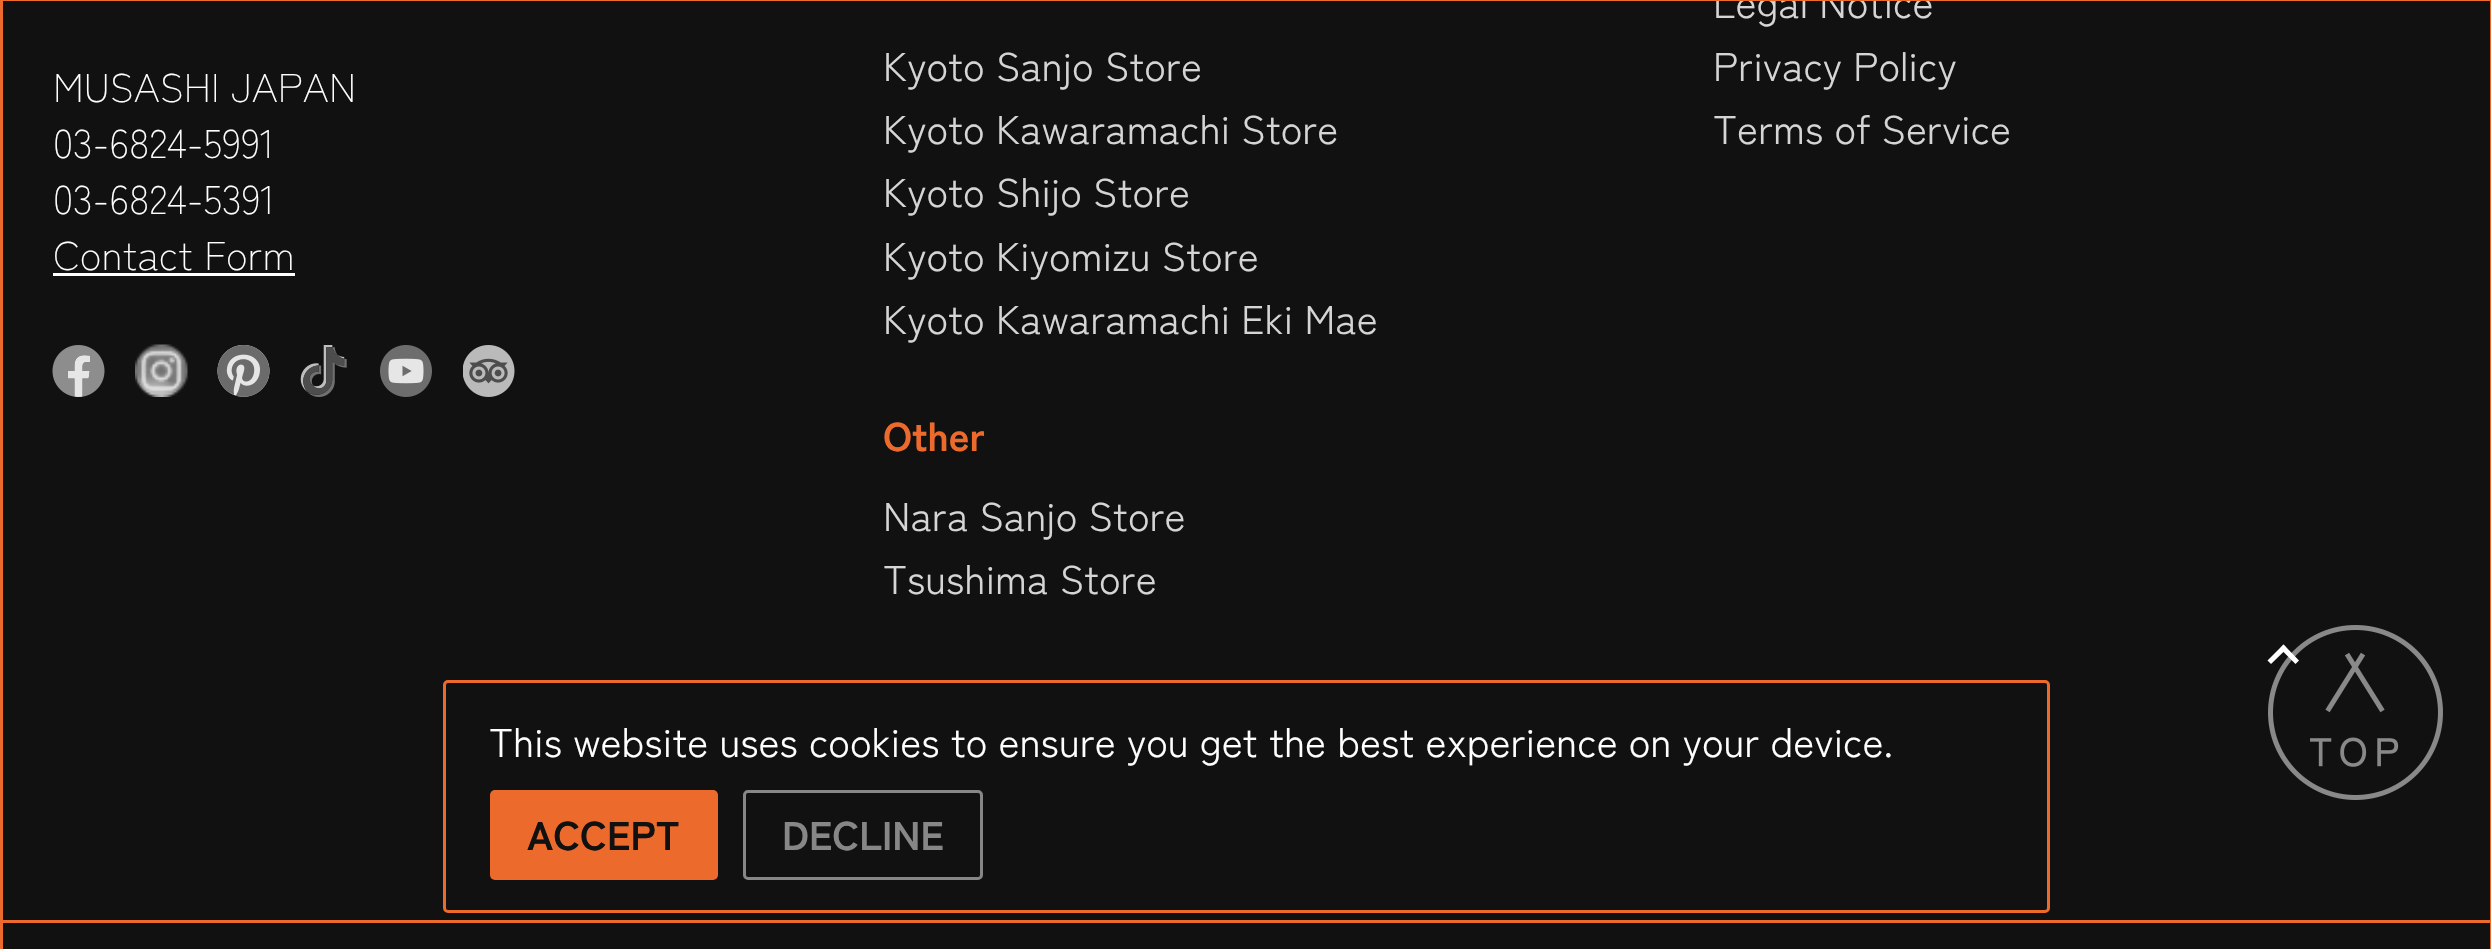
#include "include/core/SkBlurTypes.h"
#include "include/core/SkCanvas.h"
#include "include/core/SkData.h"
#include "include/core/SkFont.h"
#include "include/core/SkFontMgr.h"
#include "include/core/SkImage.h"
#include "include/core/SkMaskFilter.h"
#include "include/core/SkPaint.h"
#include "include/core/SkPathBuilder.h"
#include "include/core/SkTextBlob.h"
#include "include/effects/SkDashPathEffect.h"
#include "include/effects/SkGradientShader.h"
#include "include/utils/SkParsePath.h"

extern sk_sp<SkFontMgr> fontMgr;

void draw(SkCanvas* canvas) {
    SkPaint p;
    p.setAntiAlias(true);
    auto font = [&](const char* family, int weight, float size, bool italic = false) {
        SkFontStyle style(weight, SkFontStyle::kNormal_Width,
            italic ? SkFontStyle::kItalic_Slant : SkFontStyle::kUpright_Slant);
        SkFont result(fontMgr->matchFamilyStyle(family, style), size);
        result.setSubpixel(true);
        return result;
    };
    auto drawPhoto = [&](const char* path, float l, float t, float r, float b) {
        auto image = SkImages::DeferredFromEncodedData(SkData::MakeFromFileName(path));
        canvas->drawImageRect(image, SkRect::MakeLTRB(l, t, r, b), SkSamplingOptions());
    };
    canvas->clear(0xFF111111);
    p.setColor(0xFFEC6A2C);
    canvas->drawRect(SkRect::MakeLTRB(2490, 0, 2491, 949), p);
    canvas->drawRect(SkRect::MakeLTRB(0, 0, 3, 949), p);
    auto font1 = font("Zen Kaku Gothic New", 400, 40);
    p.setColor(0xFFD5D5D5);
    canvas->drawString("Legal Notice", 1713, 18, font1, p);
    p.setColor(0xFFEC6A2C);
    canvas->drawRect(SkRect::MakeLTRB(3, 0, 2490, 1), p);
    auto font2 = font("Zen Kaku Gothic New", 300, 40);
    p.setColor(0xFFFFFFFF);
    {
        const struct { const char* s; float x, y; } items[] = {
            {"MUSASHI JAPAN", 53, 102},
            {"03-6824-5991", 53, 158},
            {"03-6824-5391", 53, 214},
            {"Contact Form", 53, 270},
        };
        for (auto [s, x, y] : items) {
            canvas->drawString(s, x, y, font2, p);
        }
    }
    canvas->drawRect(SkRect::MakeLTRB(53, 273, 295, 276), p);
    drawPhoto("media/1.png", 52, 345, 105, 397);
    drawPhoto("media/2.png", 135, 344, 188, 397);
    drawPhoto("media/3.png", 217, 345, 270, 397);
    drawPhoto("media/4.png", 300, 345, 347, 397);
    drawPhoto("media/5.png", 380, 345, 432, 397);
    drawPhoto("media/6.png", 463, 345, 515, 397);
    p.setColor(0xFFD5D5D5);
    {
        const struct { const char* s; float x, y; } items[] = {
            {"Kyoto Sanjo Store", 883, 81},
            {"Kyoto Kawaramachi Store", 883, 144},
            {"Kyoto Shijo Store", 883, 207},
            {"Kyoto Kiyomizu Store", 883, 271},
            {"Kyoto Kawaramachi Eki Mae", 883, 334},
        };
        for (auto [s, x, y] : items) {
            canvas->drawString(s, x, y, font1, p);
        }
    }
    auto font3 = font("Zen Kaku Gothic New", 700, 40);
    p.setColor(0xFFEC6A2C);
    canvas->drawString("Other", 883, 451, font3, p);
    p.setColor(0xFFD5D5D5);
    {
        const struct { const char* s; float x, y; } items[] = {
            {"Nara Sanjo Store", 883, 531},
            {"Tsushima Store", 883, 594},
            {"Privacy Policy", 1713, 81},
            {"Terms of Service", 1713, 144},
        };
        for (auto [s, x, y] : items) {
            canvas->drawString(s, x, y, font1, p);
        }
    }
    p.setColor(0xFFEC6A2C);
    canvas->drawRect(SkRect::MakeLTRB(3, 920, 2490, 923), p);
    drawPhoto("media/7.png", 2268, 625, 2443, 800);
    p.setColor(0xFFFFFFFF);
    canvas->drawPath(SkPathBuilder().moveTo(2299, 660.5f).lineTo(2283.5f, 644.5f).lineTo(2280, 648.5f).lineTo(2295.5f, 664).close().detach(), p);
    canvas->drawPath(SkPathBuilder().moveTo(2271, 664).lineTo(2287, 648.5f).lineTo(2283.5f, 644.5f).lineTo(2267.5f, 660.5f).close().detach(), p);
    p.setStyle(SkPaint::kStroke_Style);
    p.setStrokeWidth(3);
    p.setColor(0xFFEC6A2C);
    canvas->drawRoundRect(SkRect::MakeLTRB(444.5f, 681.5f, 2048.5f, 911.5f), 3.5f, 3.5f, p);
    p.setStyle(SkPaint::kFill_Style);
    p.setColor(0xFFFFFFFF);
    canvas->drawString("This website uses cookies to ensure you get the best experience on your device.", 489, 757, font1, p);
    p.setColor(0xFFEC6A2C);
    canvas->drawRoundRect(SkRect::MakeLTRB(490, 790, 718, 880), 5, 5, p);
    p.setColor(0xFF111111);
    canvas->drawString("ACCEPT", 527, 850, font3, p);
    p.setStyle(SkPaint::kStroke_Style);
    p.setColor(0xFF878787);
    canvas->drawRoundRect(SkRect::MakeLTRB(744.5f, 791.5f, 981.5f, 878.5f), 3.5f, 3.5f, p);
    p.setStyle(SkPaint::kFill_Style);
    canvas->drawString("DECLINE", 782, 850, font3, p);
}
